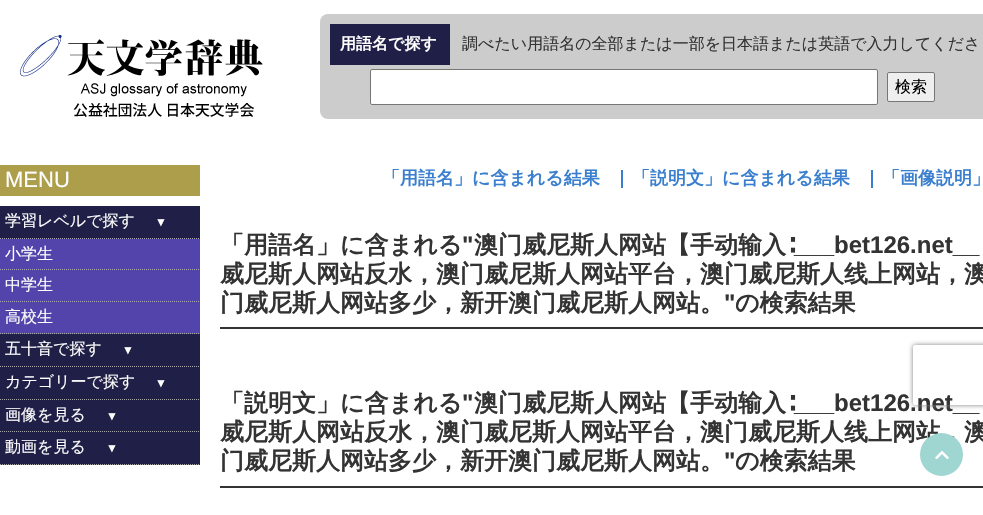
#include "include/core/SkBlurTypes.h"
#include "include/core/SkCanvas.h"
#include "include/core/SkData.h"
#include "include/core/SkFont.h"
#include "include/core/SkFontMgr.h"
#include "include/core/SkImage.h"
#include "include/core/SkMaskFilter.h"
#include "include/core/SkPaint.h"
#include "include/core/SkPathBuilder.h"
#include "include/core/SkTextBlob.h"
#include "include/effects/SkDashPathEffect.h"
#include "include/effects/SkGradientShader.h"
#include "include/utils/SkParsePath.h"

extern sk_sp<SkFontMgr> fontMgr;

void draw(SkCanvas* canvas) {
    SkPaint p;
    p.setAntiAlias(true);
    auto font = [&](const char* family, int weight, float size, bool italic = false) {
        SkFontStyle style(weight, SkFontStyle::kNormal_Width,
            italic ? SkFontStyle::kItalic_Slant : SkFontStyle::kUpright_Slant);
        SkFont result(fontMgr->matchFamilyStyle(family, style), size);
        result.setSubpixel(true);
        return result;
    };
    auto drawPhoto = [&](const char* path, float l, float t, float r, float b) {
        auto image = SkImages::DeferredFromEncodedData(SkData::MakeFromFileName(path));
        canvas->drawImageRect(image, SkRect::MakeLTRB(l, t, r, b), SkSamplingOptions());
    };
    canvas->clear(0xFFFFFFFF);
    drawPhoto("media/1.png", 20, 35, 263, 117);
    p.setColor(0xFFCCCCCC);
    canvas->drawRoundRect(SkRect::MakeLTRB(320, 14, 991, 119), 8, 8, p);
    p.setColor(0xFF1F1F47);
    canvas->drawRect(SkRect::MakeLTRB(330, 24, 450, 65), p);
    auto font1 = font("WenQuanYi Zen Hei", 700, 16);
    p.setColor(0xFFFFFFFF);
    canvas->drawString("用語名で探す", 340, 49, font1, p);
    auto font2 = font("WenQuanYi Zen Hei", 500, 16);
    p.setColor(0xFF333333);
    canvas->drawString("調べたい用語名の全部または一部を日本語または英語で入力してくださ", 462, 49, font2, p);
    p.setColor(0xFFFFFFFF);
    canvas->drawRoundRect(SkRect::MakeLTRB(370.5f, 69.5f, 877.5f, 104.5f), 1.5f, 1.5f, p);
    p.setStyle(SkPaint::kStroke_Style);
    p.setStrokeWidth(1);
    p.setColor(0xFF767676);
    canvas->drawRoundRect(SkRect::MakeLTRB(370.5f, 69.5f, 877.5f, 104.5f), 1.5f, 1.5f, p);
    p.setStyle(SkPaint::kFill_Style);
    p.setColor(0xFFEFEFEF);
    canvas->drawRoundRect(SkRect::MakeLTRB(887.5f, 72.5f, 934.5f, 101.5f), 1.5f, 1.5f, p);
    p.setStyle(SkPaint::kStroke_Style);
    p.setColor(0xFF767676);
    canvas->drawRoundRect(SkRect::MakeLTRB(887.5f, 72.5f, 934.5f, 101.5f), 1.5f, 1.5f, p);
    p.setStyle(SkPaint::kFill_Style);
    p.setColor(0xFF000000);
    canvas->drawString("検索", 895, 92, font2, p);
    p.setColor(0xFFAD9E4C);
    canvas->drawRect(SkRect::MakeLTRB(0, 165, 200, 196), p);
    auto font3 = font("Liberation Sans", 400, 22);
    p.setColor(0xFFFFFFFF);
    canvas->drawString("MENU", 5, 187, font3, p);
    p.setColor(0xFF1F1F47);
    canvas->drawRect(SkRect::MakeLTRB(0, 206, 200, 239), p);
    p.setStyle(SkPaint::kStroke_Style);
    p.setColor(0xFFA9A9A9);
    p.setPathEffect(SkDashPathEffect::Make({{1, 1}}, 0));
    canvas->drawPath(SkPathBuilder().moveTo(0, 238.5f).lineTo(200, 238.5f).detach(), p);
    p.setPathEffect(nullptr);
    p.setStyle(SkPaint::kFill_Style);
    p.setColor(0xFFFFFFFF);
    canvas->drawString("学習レベルで探す", 5, 226, font2, p);
    auto font4 = font("Liberation Sans", 400, 12);
    canvas->drawString("▼", 155, 226, font4, p);
    p.setColor(0xFF5244AB);
    canvas->drawRect(SkRect::MakeLTRB(0, 239, 200, 334), p);
    p.setStyle(SkPaint::kStroke_Style);
    p.setColor(0xFFA9A9A9);
    p.setPathEffect(SkDashPathEffect::Make({{1, 1}}, 0));
    canvas->drawPath(SkPathBuilder().moveTo(0, 269.5f).lineTo(200, 269.5f).detach(), p);
    p.setPathEffect(nullptr);
    p.setStyle(SkPaint::kFill_Style);
    p.setColor(0xFFFFFFFF);
    canvas->drawString("小学生", 5, 259, font2, p);
    p.setStyle(SkPaint::kStroke_Style);
    p.setColor(0xFFA9A9A9);
    p.setPathEffect(SkDashPathEffect::Make({{1, 1}}, 0));
    canvas->drawPath(SkPathBuilder().moveTo(0, 301.5f).lineTo(200, 301.5f).detach(), p);
    p.setPathEffect(nullptr);
    p.setStyle(SkPaint::kFill_Style);
    p.setColor(0xFFFFFFFF);
    canvas->drawString("中学生", 5, 290, font2, p);
    p.setStyle(SkPaint::kStroke_Style);
    p.setColor(0xFFA9A9A9);
    p.setPathEffect(SkDashPathEffect::Make({{1, 1}}, 0));
    canvas->drawPath(SkPathBuilder().moveTo(0, 333.5f).lineTo(200, 333.5f).detach(), p);
    p.setPathEffect(nullptr);
    p.setStyle(SkPaint::kFill_Style);
    p.setColor(0xFFFFFFFF);
    canvas->drawString("高校生", 5, 322, font2, p);
    p.setColor(0xFF1F1F47);
    canvas->drawRect(SkRect::MakeLTRB(0, 334, 200, 465), p);
    p.setStyle(SkPaint::kStroke_Style);
    p.setColor(0xFFA9A9A9);
    p.setPathEffect(SkDashPathEffect::Make({{1, 1}}, 0));
    canvas->drawPath(SkPathBuilder().moveTo(0, 366.5f).lineTo(200, 366.5f).detach(), p);
    p.setPathEffect(nullptr);
    p.setStyle(SkPaint::kFill_Style);
    p.setColor(0xFFFFFFFF);
    canvas->drawString("五十音で探す", 5, 354, font2, p);
    canvas->drawString("▼", 122, 354, font4, p);
    p.setStyle(SkPaint::kStroke_Style);
    p.setColor(0xFFA9A9A9);
    p.setPathEffect(SkDashPathEffect::Make({{1, 1}}, 0));
    canvas->drawPath(SkPathBuilder().moveTo(0, 399.5f).lineTo(200, 399.5f).detach(), p);
    p.setPathEffect(nullptr);
    p.setStyle(SkPaint::kFill_Style);
    p.setColor(0xFFFFFFFF);
    canvas->drawString("カテゴリーで探す", 5, 387, font2, p);
    canvas->drawString("▼", 155, 387, font4, p);
    p.setStyle(SkPaint::kStroke_Style);
    p.setColor(0xFFA9A9A9);
    p.setPathEffect(SkDashPathEffect::Make({{1, 1}}, 0));
    canvas->drawPath(SkPathBuilder().moveTo(0, 431.5f).lineTo(200, 431.5f).detach(), p);
    p.setPathEffect(nullptr);
    p.setStyle(SkPaint::kFill_Style);
    p.setColor(0xFFFFFFFF);
    canvas->drawString("画像を見る", 5, 420, font2, p);
    canvas->drawString("▼", 106, 420, font4, p);
    p.setStyle(SkPaint::kStroke_Style);
    p.setColor(0xFFA9A9A9);
    p.setPathEffect(SkDashPathEffect::Make({{1, 1}}, 0));
    canvas->drawPath(SkPathBuilder().moveTo(0, 464.5f).lineTo(200, 464.5f).detach(), p);
    p.setPathEffect(nullptr);
    p.setStyle(SkPaint::kFill_Style);
    p.setColor(0xFFFFFFFF);
    canvas->drawString("動画を見る", 5, 452, font2, p);
    canvas->drawString("▼", 106, 452, font4, p);
    auto font5 = font("WenQuanYi Zen Hei", 700, 18);
    p.setColor(0xFF3A7FCF);
    canvas->drawString("「用語名」に含まれる結果", 382, 184, font5, p);
    canvas->drawRect(SkRect::MakeLTRB(621, 170, 623, 188), p);
    canvas->drawString("「説明文」に含まれる結果", 632, 184, font5, p);
    canvas->drawRect(SkRect::MakeLTRB(871, 170, 873, 188), p);
    canvas->drawString("「画像説明」", 882, 184, font5, p);
    p.setColor(0xFF333333);
    canvas->drawRect(SkRect::MakeLTRB(220, 327, 983, 329), p);
    auto font6 = font("WenQuanYi Zen Hei", 700, 24);
    canvas->drawString("「用語名」に含まれる", 220, 253, font6, p);
    auto font7 = font("Liberation Sans", 700, 24);
    canvas->drawString("\"", 462, 253, font7, p);
    canvas->drawString("澳门威尼斯人网站【手动输入∶", 474, 253, font6, p);
    canvas->drawString("___bet126.net__", 794, 253, font7, p);
    canvas->drawString("威尼斯人网站反水，澳门威尼斯人网站平台，澳门威尼斯人线上网站，澳", 220, 282, font6, p);
    canvas->drawString("门威尼斯人网站多少，新开澳门威尼斯人网站。", 220, 311, font6, p);
    canvas->drawString("\"", 724, 311, font7, p);
    canvas->drawString("の検索結果", 735, 311, font6, p);
    canvas->drawRect(SkRect::MakeLTRB(220, 486, 983, 488), p);
    canvas->drawString("「説明文」に含まれる", 220, 411, font6, p);
    canvas->drawString("\"", 462, 411, font7, p);
    canvas->drawString("澳门威尼斯人网站【手动输入∶", 474, 411, font6, p);
    canvas->drawString("___bet126.net__", 794, 411, font7, p);
    canvas->drawString("威尼斯人网站反水，澳门威尼斯人网站平台，澳门威尼斯人线上网站，澳", 220, 440, font6, p);
    canvas->drawString("门威尼斯人网站多少，新开澳门威尼斯人网站。", 220, 469, font6, p);
    canvas->drawString("\"", 724, 469, font7, p);
    canvas->drawString("の検索結果", 735, 469, font6, p);
    p.setColor(0xFF9FD6D2);
    canvas->drawCircle(941.5f, 454.5f, 21.5f, p);
    drawPhoto("media/2.png", 935, 451, 949, 460);
    canvas->save();
    canvas->clipPath(SkPathBuilder(SkPathFillType::kEvenOdd).moveTo(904, 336).lineTo(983, 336).lineTo(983, 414).lineTo(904, 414).close().moveTo(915, 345).lineTo(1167, 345).cubicTo(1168, 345, 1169, 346, 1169, 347).lineTo(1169, 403).cubicTo(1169, 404, 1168, 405, 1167, 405).lineTo(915, 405).cubicTo(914, 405, 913, 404, 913, 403).lineTo(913, 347).cubicTo(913, 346, 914, 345, 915, 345).close().detach(), true);
    p.setColor(0xFF808080);
    p.setMaskFilter(SkMaskFilter::MakeBlur(kNormal_SkBlurStyle, 2.5f));
    canvas->drawRoundRect(SkRect::MakeLTRB(913, 345, 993, 405), 2, 2, p);
    p.setMaskFilter(nullptr);
    canvas->restore();
}
